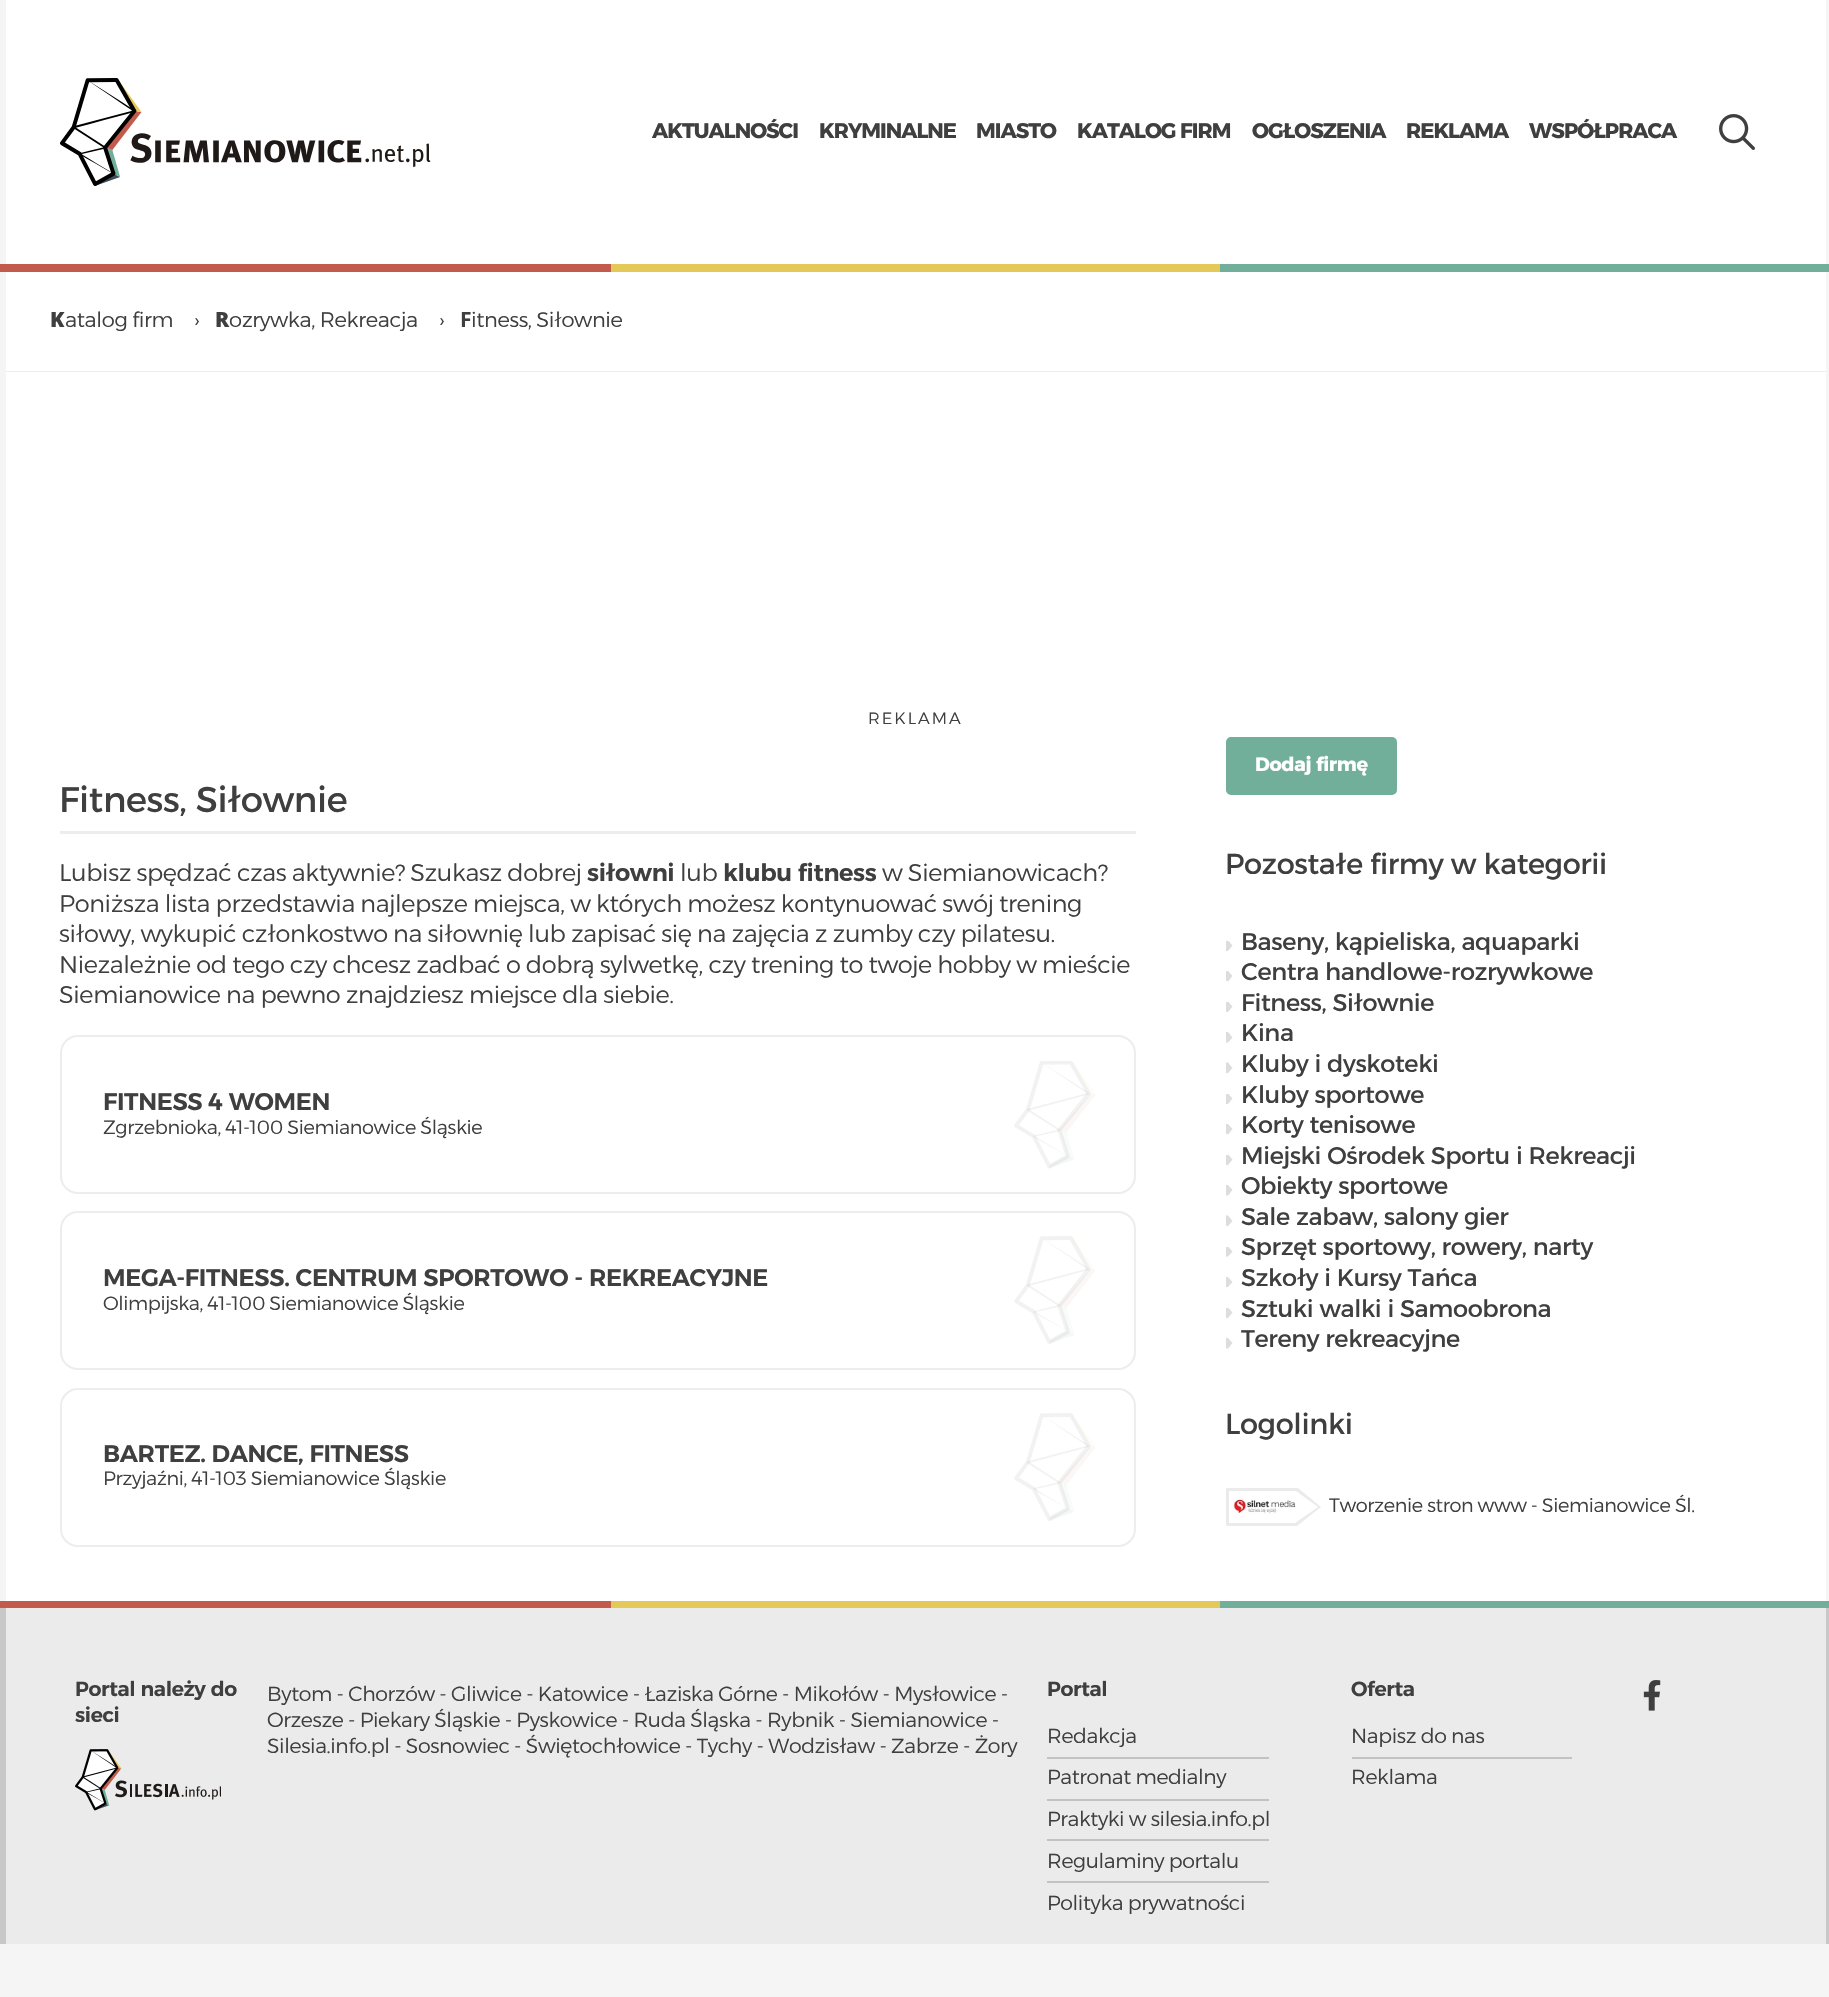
#include "include/core/SkBlurTypes.h"
#include "include/core/SkCanvas.h"
#include "include/core/SkData.h"
#include "include/core/SkFont.h"
#include "include/core/SkFontMgr.h"
#include "include/core/SkImage.h"
#include "include/core/SkMaskFilter.h"
#include "include/core/SkPaint.h"
#include "include/core/SkPathBuilder.h"
#include "include/core/SkTextBlob.h"
#include "include/effects/SkDashPathEffect.h"
#include "include/effects/SkGradientShader.h"
#include "include/utils/SkParsePath.h"

extern sk_sp<SkFontMgr> fontMgr;

void draw(SkCanvas* canvas) {
    SkPaint p;
    p.setAntiAlias(true);
    auto font = [&](const char* family, int weight, float size, bool italic = false) {
        SkFontStyle style(weight, SkFontStyle::kNormal_Width,
            italic ? SkFontStyle::kItalic_Slant : SkFontStyle::kUpright_Slant);
        SkFont result(fontMgr->matchFamilyStyle(family, style), size);
        result.setSubpixel(true);
        return result;
    };
    auto drawTracked = [&](const char* s, float x, float y, const SkFont& font, const SkPaint& ink, float letter, float word) {
        std::vector<SkGlyphID> glyphs(font.countText(s, strlen(s), SkTextEncoding::kUTF8));
        std::vector<float> xs(glyphs.size());
        font.textToGlyphs(s, strlen(s), SkTextEncoding::kUTF8, glyphs);
        font.getXPos(glyphs, xs, x);
        float extra = 0;
        for (size_t i = 0; i < glyphs.size(); i++) {
            xs[i] += extra;
            extra += letter + word * (glyphs[i] == font.unicharToGlyph(' '));
        }
        canvas->drawTextBlob(SkTextBlob::MakeFromPosHGlyphs(glyphs, xs, y, font), 0, 0, ink);
    };
    auto drawPhoto = [&](const char* path, float l, float t, float r, float b) {
        auto image = SkImages::DeferredFromEncodedData(SkData::MakeFromFileName(path));
        canvas->drawImageRect(image, SkRect::MakeLTRB(l, t, r, b), SkSamplingOptions());
    };
    canvas->clear(0xFFF5F5F5);
    p.setColor(0xFFFFFFFF);
    canvas->drawRect(SkRect::MakeLTRB(6, 0, 1826, 264), p);
    drawPhoto("media/1.png", 60, 78, 431, 186);
    auto font1 = font("Alexandria", 700, 21);
    p.setColor(0xFF3F3F3F);
    {
        const struct { const char* s; float x, y; } items[] = {
            {"AKTUALNOŚCI", 652, 138},
            {"KRYMINALNE", 819, 138},
            {"MIASTO", 976, 138},
            {"KATALOG FIRM", 1077, 138},
            {"OGŁOSZENIA", 1252, 138},
            {"REKLAMA", 1406, 138},
            {"WSPÓŁPRACA", 1529, 138},
        };
        for (auto [s, x, y] : items) {
            drawTracked(s, x, y, font1, p, -1, 0);
        }
    }
    drawPhoto("media/2.png", 1719, 114, 1755, 150);
    {
        const struct { float l, t, r, b; SkColor color; } items[] = {
            {0, 264, 611, 272, 0xFFC25B4B},
            {611, 264, 1220, 272, 0xFFE4C858},
            {1220, 264, 1829, 272, 0xFF72AF9B},
            {6, 272, 1826, 371, 0xFFFFFFFF},
            {6, 371, 1826, 372, 0xFFEDEDED},
        };
        for (auto [l, t, r, b, color] : items) {
            p.setColor(color);
            canvas->drawRect(SkRect::MakeLTRB(l, t, r, b), p);
        }
    }
    auto font2 = font("Noto Sans", 900, 21);
    p.setColor(0xFF3F3F3F);
    drawTracked("K", 50, 327, font2, p, -0.35f, 0);
    auto font3 = font("Alexandria", 300, 21);
    drawTracked("atalog firm", 65, 327, font3, p, -0.35f, 0);
    drawTracked("›", 194, 327, font3, p, -0.35f, 0);
    drawTracked("R", 215, 327, font2, p, -0.35f, 0);
    drawTracked("ozrywka, Rekreacja", 229, 327, font3, p, -0.35f, 0);
    drawTracked("›", 439, 327, font3, p, -0.35f, 0);
    auto font4 = font("Noto Sans", 700, 21);
    drawTracked("F", 460, 327, font4, p, -0.35f, 0);
    drawTracked("itness, Siłownie", 471, 327, font3, p, -0.35f, 0);
    p.setColor(0xFFFFFFFF);
    canvas->drawRect(SkRect::MakeLTRB(6, 372, 1826, 1601), p);
    auto font5 = font("Alexandria", 300, 16.25f);
    p.setColor(0xFF3F3F3F);
    drawTracked("REKLAMA", 868, 724, font5, p, 2, 0);
    p.setColor(0xFFEDEDED);
    canvas->drawRect(SkRect::MakeLTRB(60, 831, 1136, 834), p);
    auto font6 = font("Alexandria", 400, 35.5f);
    p.setColor(0xFF3F3F3F);
    drawTracked("Fitness, Siłownie", 59, 812, font6, p, -0.35f, 0);
    auto font7 = font("Alexandria", 300, 24);
    drawTracked("Lubisz spędzać czas aktywnie? Szukasz dobrej", 59, 881, font7, p, -0.35f, 0);
    auto font8 = font("Alexandria", 600, 24);
    drawTracked("siłowni", 587, 881, font8, p, -0.35f, 0);
    drawTracked("lub", 680, 881, font7, p, -0.35f, 0);
    drawTracked("klubu fitness", 723, 881, font8, p, -0.35f, 0);
    {
        const struct { const char* s; float x, y; } items[] = {
            {"w Siemianowicach?", 882, 881},
            {"Poniższa lista przedstawia najlepsze miejsca, w których możesz kontynuować swój trening", 59, 912},
            {"siłowy, wykupić członkostwo na siłownię lub zapisać się na zajęcia z zumby czy pilatesu.", 59, 942},
            {"Niezależnie od tego czy chcesz zadbać o dobrą sylwetkę, czy trening to twoje hobby w mieście", 59, 973},
            {"Siemianowice na pewno znajdziesz miejsce dla siebie.", 59, 1003},
        };
        for (auto [s, x, y] : items) {
            drawTracked(s, x, y, font7, p, -0.35f, 0);
        }
    }
    p.setStyle(SkPaint::kStroke_Style);
    p.setStrokeWidth(2);
    p.setColor(0xFFEDEDED);
    canvas->drawRoundRect(SkRect::MakeLTRB(61, 1036, 1135, 1193), 17, 17, p);
    p.setStyle(SkPaint::kFill_Style);
    p.setColor(0xFF3F3F3F);
    drawTracked("FITNESS 4 WOMEN", 103, 1110, font8, p, -0.35f, 0);
    auto font9 = font("Alexandria", 300, 19.25f);
    drawTracked("Zgrzebnioka, 41-100 Siemianowice Śląskie", 103, 1134, font9, p, -0.35f, 0);
    drawPhoto("media/3.png", 1014, 1061, 1096, 1169);
    p.setStyle(SkPaint::kStroke_Style);
    p.setColor(0xFFEDEDED);
    canvas->drawRoundRect(SkRect::MakeLTRB(61, 1212, 1135, 1369), 17, 17, p);
    p.setStyle(SkPaint::kFill_Style);
    p.setColor(0xFF3F3F3F);
    drawTracked("MEGA-FITNESS. CENTRUM SPORTOWO - REKREACYJNE", 103, 1286, font8, p, -0.35f, 0);
    drawTracked("Olimpijska, 41-100 Siemianowice Śląskie", 103, 1310, font9, p, -0.35f, 0);
    drawPhoto("media/4.png", 1014, 1236, 1095, 1344);
    p.setStyle(SkPaint::kStroke_Style);
    p.setColor(0xFFEDEDED);
    canvas->drawRoundRect(SkRect::MakeLTRB(61, 1389, 1135, 1546), 17, 17, p);
    p.setStyle(SkPaint::kFill_Style);
    p.setColor(0xFF3F3F3F);
    drawTracked("BARTEZ. DANCE, FITNESS", 103, 1462, font8, p, -0.35f, 0);
    drawTracked("Przyjaźni, 41-103 Siemianowice Śląskie", 103, 1485, font9, p, -0.35f, 0);
    drawPhoto("media/4.png", 1014, 1413, 1095, 1521);
    p.setColor(0xFF72AF9B);
    canvas->drawRoundRect(SkRect::MakeLTRB(1227, 738, 1396, 794), 4, 4, p);
    p.setStyle(SkPaint::kStroke_Style);
    canvas->drawRoundRect(SkRect::MakeLTRB(1227, 738, 1396, 794), 4, 4, p);
    auto font10 = font("Alexandria", 700, 19.25f);
    p.setStyle(SkPaint::kFill_Style);
    p.setColor(0xFFFFFFFF);
    drawTracked("Dodaj firmę", 1255, 771, font10, p, -0.35f, 0);
    auto font11 = font("Alexandria", 400, 28.75f);
    p.setColor(0xFF3F3F3F);
    drawTracked("Pozostałe firmy w kategorii", 1225, 874, font11, p, -0.35f, 0);
    p.setColor(0xFFDDDDDD);
    canvas->drawPath(SkPathBuilder().moveTo(1226, 941).lineTo(1228.5f, 941).lineTo(1232.5f, 945.5f).lineTo(1228, 951).lineTo(1226, 951).close().moveTo(1226, 971).lineTo(1228, 971).lineTo(1232.5f, 976).lineTo(1228.5f, 981).lineTo(1226, 981).close().detach(), p);
    auto font12 = font("Alexandria", 400, 24);
    p.setColor(0xFF3F3F3F);
    drawTracked("Baseny, kąpieliska, aquaparki", 1241, 950, font12, p, -0.35f, 0);
    drawTracked("Centra handlowe-rozrywkowe", 1241, 980, font12, p, -0.35f, 0);
    p.setColor(0xFFDDDDDD);
    canvas->drawPath(SkPathBuilder().moveTo(1226, 1002).lineTo(1228.5f, 1002).lineTo(1232.5f, 1006.5f).lineTo(1228, 1012).lineTo(1226, 1012).close().moveTo(1226, 1042.5f).lineTo(1226, 1032).lineTo(1228, 1032).lineTo(1232.5f, 1037.5f).lineTo(1228, 1042.5f).close().detach(), p);
    p.setColor(0xFF3F3F3F);
    drawTracked("Fitness, Siłownie", 1241, 1011, font12, p, -0.35f, 0);
    drawTracked("Kina", 1241, 1041, font12, p, -0.35f, 0);
    p.setColor(0xFFDDDDDD);
    canvas->drawPath(SkPathBuilder().moveTo(1228, 1073).lineTo(1226, 1073).lineTo(1226, 1062.5f).lineTo(1228, 1062.5f).lineTo(1232.5f, 1068).close().moveTo(1226, 1094).lineTo(1228.5f, 1094).lineTo(1232.5f, 1098.5f).lineTo(1228, 1104).lineTo(1226, 1104).close().detach(), p);
    p.setColor(0xFF3F3F3F);
    drawTracked("Kluby i dyskoteki", 1241, 1072, font12, p, -0.35f, 0);
    drawTracked("Kluby sportowe", 1241, 1103, font12, p, -0.35f, 0);
    p.setColor(0xFFDDDDDD);
    canvas->drawPath(SkPathBuilder().moveTo(1226, 1124).lineTo(1228, 1124).lineTo(1232.5f, 1129).lineTo(1228.5f, 1134).lineTo(1226, 1134).close().moveTo(1226, 1155).lineTo(1228.5f, 1155).lineTo(1232.5f, 1159.5f).lineTo(1228, 1165).lineTo(1226, 1165).close().detach(), p);
    p.setColor(0xFF3F3F3F);
    drawTracked("Korty tenisowe", 1241, 1133, font12, p, -0.35f, 0);
    drawTracked("Miejski Ośrodek Sportu i Rekreacji", 1241, 1164, font12, p, -0.35f, 0);
    p.setColor(0xFFDDDDDD);
    canvas->drawPath(SkPathBuilder().moveTo(1226, 1185).lineTo(1228, 1185).lineTo(1232.5f, 1190).lineTo(1228, 1195.5f).lineTo(1226, 1195.5f).close().moveTo(1228, 1226).lineTo(1226, 1226).lineTo(1226, 1215.5f).lineTo(1228, 1215.5f).lineTo(1232.5f, 1221).close().detach(), p);
    p.setColor(0xFF3F3F3F);
    drawTracked("Obiekty sportowe", 1241, 1194, font12, p, -0.35f, 0);
    drawTracked("Sale zabaw, salony gier", 1241, 1225, font12, p, -0.35f, 0);
    p.setColor(0xFFDDDDDD);
    canvas->drawPath(SkPathBuilder().moveTo(1226, 1247).lineTo(1228.5f, 1247).lineTo(1232.5f, 1251.5f).lineTo(1228, 1256.5f).lineTo(1226, 1256.5f).close().moveTo(1226, 1277).lineTo(1228, 1277).lineTo(1232.5f, 1282).lineTo(1228, 1287).lineTo(1226, 1287).close().detach(), p);
    p.setColor(0xFF3F3F3F);
    drawTracked("Sprzęt sportowy, rowery, narty", 1241, 1255, font12, p, -0.35f, 0);
    drawTracked("Szkoły i Kursy Tańca", 1241, 1286, font12, p, -0.35f, 0);
    p.setColor(0xFFDDDDDD);
    canvas->drawPath(SkPathBuilder().moveTo(1226, 1308).lineTo(1228.5f, 1308).lineTo(1232.5f, 1312.5f).lineTo(1228, 1318).lineTo(1226, 1318).close().moveTo(1226, 1338).lineTo(1228, 1338).lineTo(1232.5f, 1343).lineTo(1228, 1348.5f).lineTo(1226, 1348.5f).close().detach(), p);
    p.setColor(0xFF3F3F3F);
    drawTracked("Sztuki walki i Samoobrona", 1241, 1317, font12, p, -0.35f, 0);
    drawTracked("Tereny rekreacyjne", 1241, 1347, font12, p, -0.35f, 0);
    drawTracked("Logolinki", 1225, 1434, font11, p, -0.35f, 0);
    p.setColor(0xFFEBEBEB);
    canvas->drawPath(SkPathBuilder().moveTo(1226, 1488).lineTo(1298, 1488).lineTo(1321, 1507).lineTo(1297, 1526).lineTo(1226, 1526).close().detach(), p);
    p.setColor(0xFFFFFFFF);
    canvas->drawPath(SkPathBuilder().moveTo(1229, 1491).lineTo(1296, 1491).lineTo(1318, 1507).lineTo(1295, 1523).lineTo(1229, 1523).close().detach(), p);
    drawPhoto("media/5.png", 1233, 1495, 1296, 1518);
    p.setColor(0xFF3F3F3F);
    drawTracked("Tworzenie stron www - Siemianowice Śl.", 1329, 1512, font9, p, -0.35f, 0);
    {
        const struct { float l, t, r, b; SkColor color; } items[] = {
            {0, 1608, 1829, 1944, 0xFFC8C8C8},
            {0, 1601, 611, 1608, 0xFFC25B4B},
            {611, 1601, 1220, 1608, 0xFFE4C858},
            {1220, 1601, 1829, 1608, 0xFF72AF9B},
            {6, 1608, 1826, 1944, 0xFFEBEBEB},
        };
        for (auto [l, t, r, b, color] : items) {
            p.setColor(color);
            canvas->drawRect(SkRect::MakeLTRB(l, t, r, b), p);
        }
    }
    auto font13 = font("Alexandria", 600, 20.4f);
    p.setColor(0xFF3F3F3F);
    drawTracked("Portal należy do", 75, 1696, font13, p, -0.35f, 0);
    drawTracked("sieci", 75, 1722, font13, p, -0.35f, 0);
    drawPhoto("media/6.png", 75, 1749, 221, 1811);
    auto font14 = font("Alexandria", 300, 20.4f);
    {
        const struct { const char* s; float x, y; } items[] = {
            {"Bytom - Chorzów - Gliwice - Katowice - Łaziska Górne - Mikołów - Mysłowice -", 267, 1701},
            {"Orzesze - Piekary Śląskie - Pyskowice - Ruda Śląska - Rybnik - Siemianowice -", 267, 1727},
            {"Silesia.info.pl - Sosnowiec - Świętochłowice - Tychy - Wodzisław - Zabrze - Żory", 267, 1753},
        };
        for (auto [s, x, y] : items) {
            drawTracked(s, x, y, font14, p, -0.35f, 0);
        }
    }
    drawTracked("Portal", 1047, 1696, font13, p, -0.35f, 0);
    p.setColor(0xFFC2C2C2);
    canvas->drawRect(SkRect::MakeLTRB(1047, 1757, 1269, 1759), p);
    p.setColor(0xFF3F3F3F);
    drawTracked("Redakcja", 1047, 1743, font14, p, -0.35f, 0);
    p.setColor(0xFFC2C2C2);
    canvas->drawRect(SkRect::MakeLTRB(1047, 1799, 1269, 1801), p);
    p.setColor(0xFF3F3F3F);
    drawTracked("Patronat medialny", 1047, 1784, font14, p, -0.35f, 0);
    p.setColor(0xFFC2C2C2);
    canvas->drawRect(SkRect::MakeLTRB(1047, 1839, 1269, 1841), p);
    p.setColor(0xFF3F3F3F);
    drawTracked("Praktyki w silesia.info.pl", 1047, 1826, font14, p, -0.35f, 0);
    p.setColor(0xFFC2C2C2);
    canvas->drawRect(SkRect::MakeLTRB(1047, 1881, 1269, 1883), p);
    p.setColor(0xFF3F3F3F);
    drawTracked("Regulaminy portalu", 1047, 1868, font14, p, -0.35f, 0);
    drawTracked("Polityka prywatności", 1047, 1910, font14, p, -0.35f, 0);
    drawTracked("Oferta", 1351, 1696, font13, p, -0.35f, 0);
    p.setColor(0xFFC2C2C2);
    canvas->drawRect(SkRect::MakeLTRB(1352, 1757, 1572, 1759), p);
    p.setColor(0xFF3F3F3F);
    drawTracked("Napisz do nas", 1351, 1743, font14, p, -0.35f, 0);
    drawTracked("Reklama", 1351, 1784, font14, p, -0.35f, 0);
    drawPhoto("media/7.png", 1643, 1680, 1661, 1711);
}
